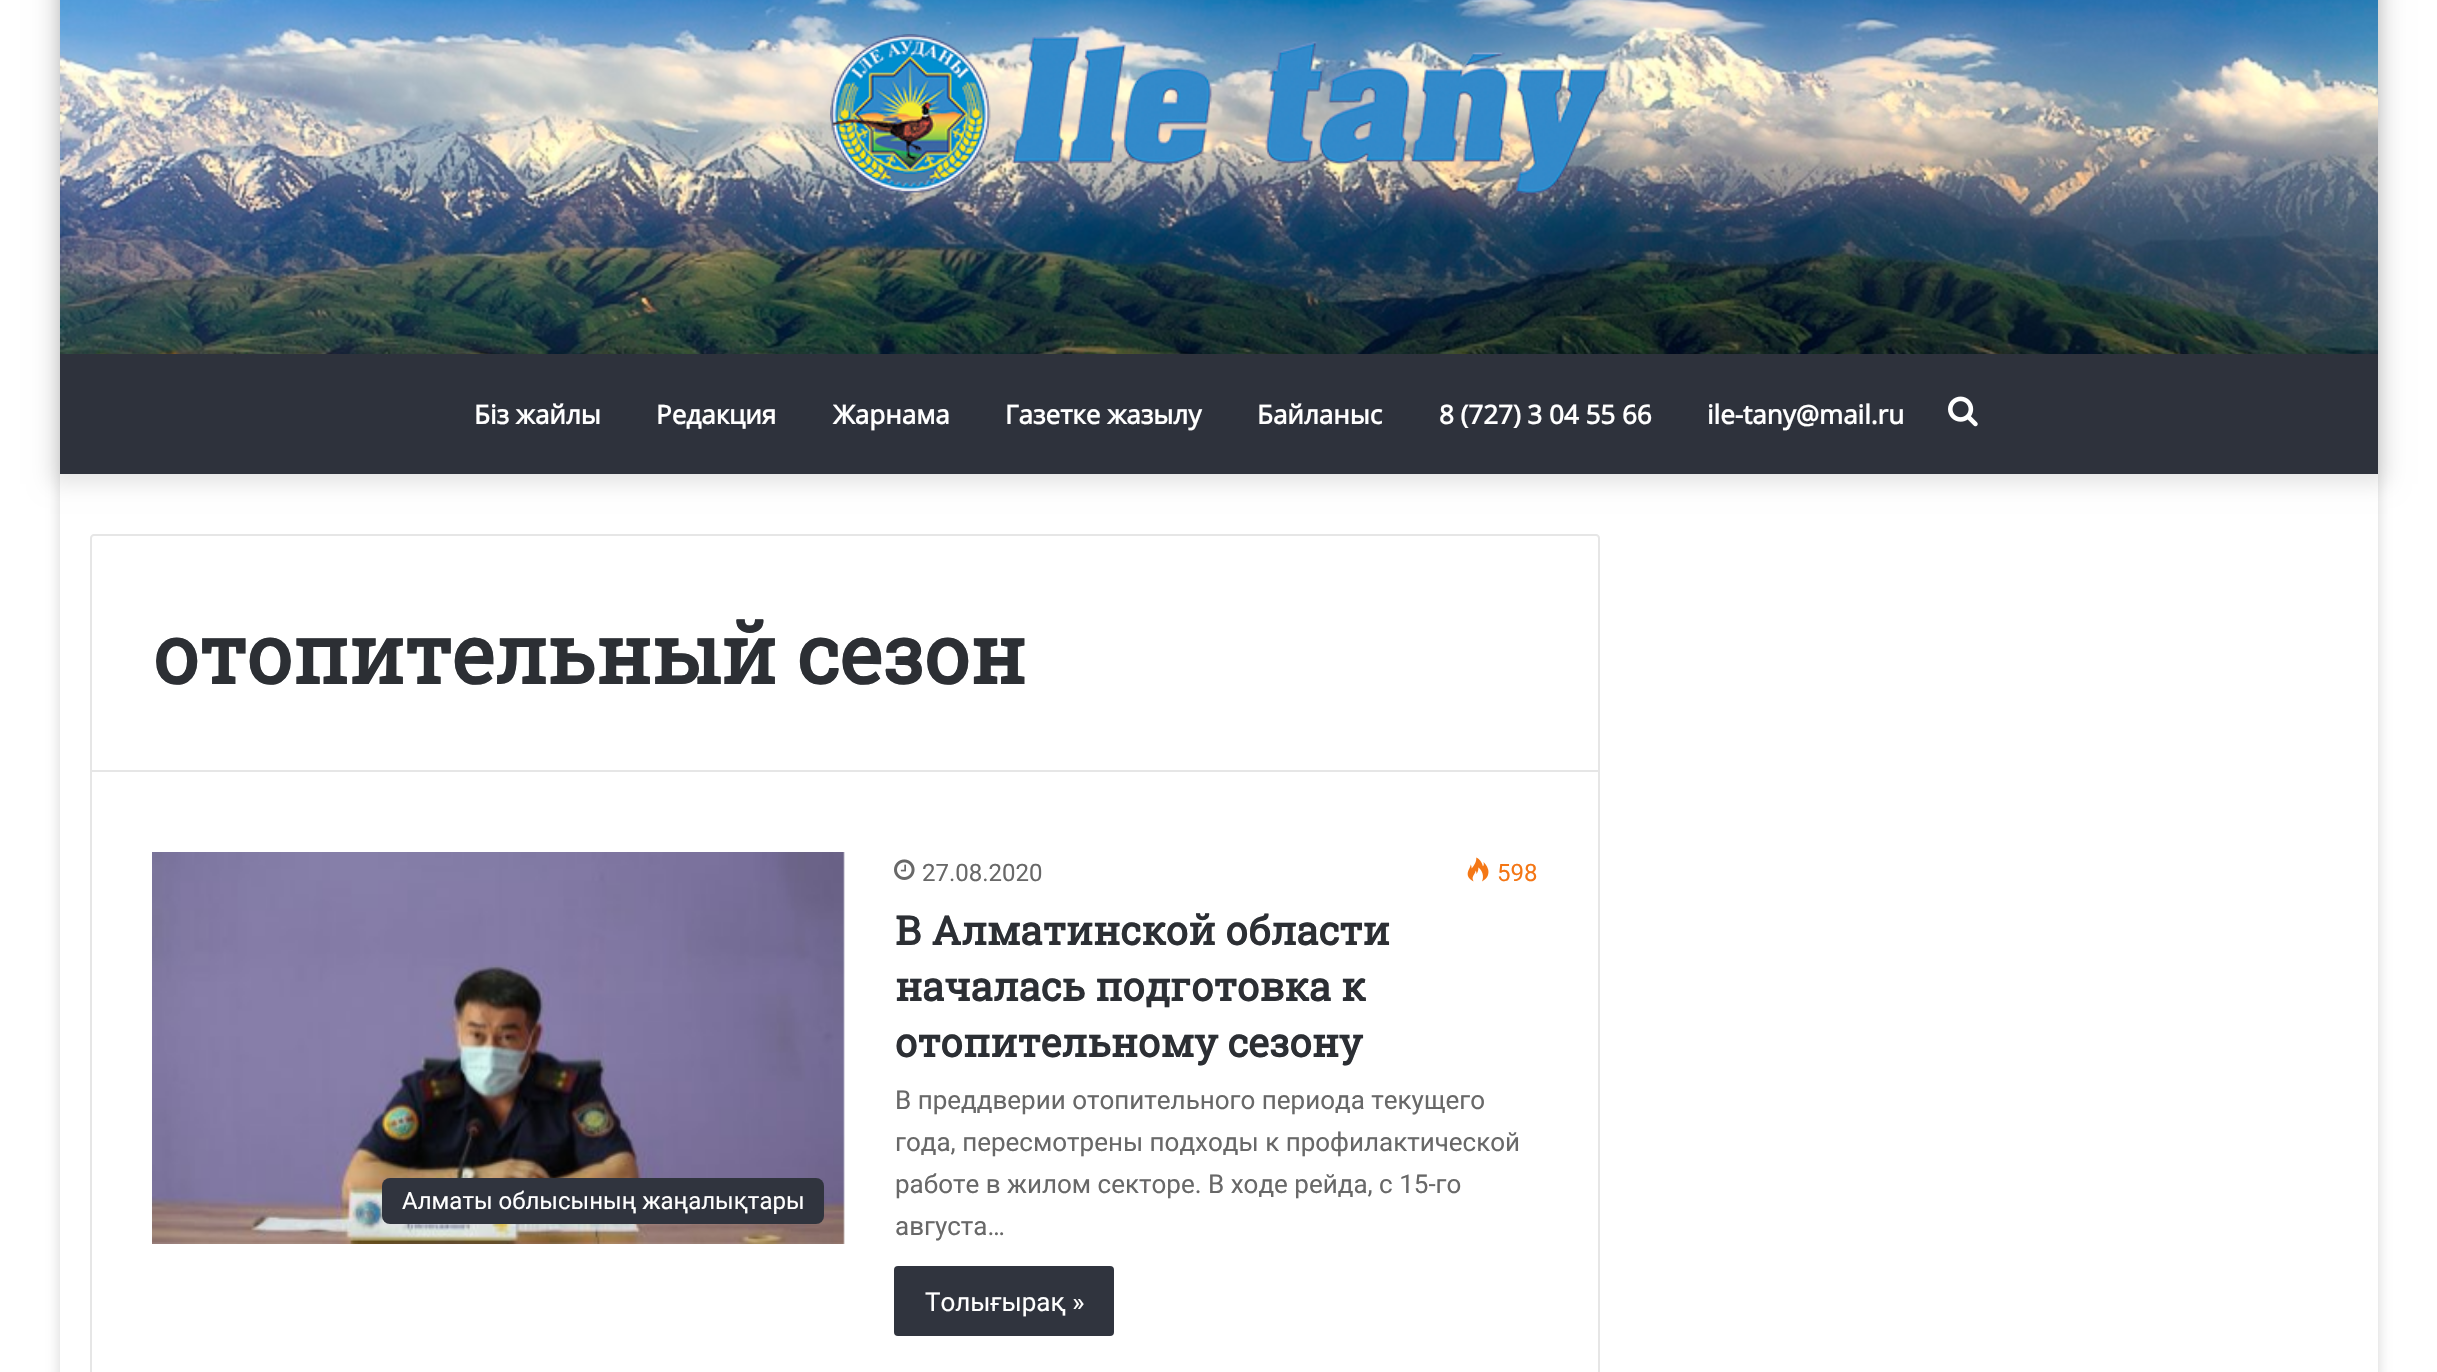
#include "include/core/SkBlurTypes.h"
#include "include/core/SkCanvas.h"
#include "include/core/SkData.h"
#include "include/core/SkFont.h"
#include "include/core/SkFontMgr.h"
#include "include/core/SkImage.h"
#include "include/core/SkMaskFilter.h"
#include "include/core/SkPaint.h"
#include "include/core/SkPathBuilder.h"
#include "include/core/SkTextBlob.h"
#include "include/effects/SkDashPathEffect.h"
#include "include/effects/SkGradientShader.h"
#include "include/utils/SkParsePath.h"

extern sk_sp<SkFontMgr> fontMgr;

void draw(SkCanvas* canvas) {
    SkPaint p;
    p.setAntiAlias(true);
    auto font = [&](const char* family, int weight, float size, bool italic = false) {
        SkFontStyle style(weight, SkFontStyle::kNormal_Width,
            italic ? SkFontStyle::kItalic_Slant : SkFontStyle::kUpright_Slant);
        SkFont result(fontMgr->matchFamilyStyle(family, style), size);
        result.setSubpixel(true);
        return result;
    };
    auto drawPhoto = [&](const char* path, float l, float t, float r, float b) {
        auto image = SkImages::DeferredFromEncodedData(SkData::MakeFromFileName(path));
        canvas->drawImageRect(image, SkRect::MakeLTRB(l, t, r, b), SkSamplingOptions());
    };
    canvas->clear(0xFFFFFFFF);
    canvas->save();
    canvas->clipPath(SkPathBuilder(SkPathFillType::kEvenOdd).moveTo(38, 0).lineTo(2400, 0).lineTo(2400, 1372).lineTo(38, 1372).close().moveTo(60, -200).lineTo(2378, -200).lineTo(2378, 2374).lineTo(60, 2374).close().detach(), true);
    p.setColor(0x80ABABAB);
    p.setMaskFilter(SkMaskFilter::MakeBlur(kNormal_SkBlurStyle, 7));
    canvas->drawRect(SkRect::MakeLTRB(60, -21, 2378, 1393), p);
    p.setMaskFilter(nullptr);
    canvas->restore();
    p.setColor(0x1A000000);
    p.setMaskFilter(SkMaskFilter::MakeBlur(kNormal_SkBlurStyle, 10));
    canvas->drawRect(SkRect::MakeLTRB(50, -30, 2388, 484), p);
    p.setMaskFilter(nullptr);
    drawPhoto("media/1.png", 60, 0, 2378, 354);
    drawPhoto("media/2.png", 830, 34, 1608, 194);
    p.setColor(0xFF2E323C);
    canvas->drawRect(SkRect::MakeLTRB(60, 354, 2378, 474), p);
    auto font1 = font("Open Sans", 700, 26);
    p.setColor(0xFFFFFFFF);
    {
        const struct { const char* s; float x, y; } items[] = {
            {"Бiз жайлы", 474, 424},
            {"Редакция", 656, 424},
            {"Жарнама", 833, 424},
            {"Газетке жазылу", 1005, 424},
            {"Байланыс", 1257, 424},
            {"8 (727) 3 04 55 66", 1439, 424},
            {"ile-tany@mail.ru", 1707, 424},
        };
        for (auto [s, x, y] : items) {
            canvas->drawString(s, x, y, font1, p);
        }
    }
    drawPhoto("media/3.png", 1948, 396, 1978, 427);
    p.setStyle(SkPaint::kStroke_Style);
    p.setStrokeWidth(2);
    p.setColor(0xFFE6E6E6);
    canvas->drawPath(SkPathBuilder().moveTo(94, 535).lineTo(1596, 535).cubicTo(1597.5f, 535, 1599, 536.5f, 1599, 538).lineTo(1599, 771).lineTo(91, 771).lineTo(91, 538).cubicTo(91, 536.5f, 92.5f, 535, 94, 535).close().detach(), p);
    auto font2 = font("Roboto Slab", 700, 82);
    p.setStyle(SkPaint::kFill_Style);
    p.setColor(0xFF2C2F34);
    canvas->drawString("отопительный сезон", 153, 684, font2, p);
    p.setColor(0xFFE6E6E6);
    canvas->drawRect(SkRect::MakeLTRB(1598, 772, 1600, 1372), p);
    canvas->drawRect(SkRect::MakeLTRB(90, 772, 92, 1372), p);
    drawPhoto("media/4.png", 152, 852, 845, 1244);
    p.setColor(0xFF30343E);
    canvas->drawRoundRect(SkRect::MakeLTRB(382, 1178, 824, 1224), 8, 8, p);
    auto font3 = font("Roboto", 400, 24);
    p.setColor(0xFFFFFFFF);
    canvas->drawString("Алматы облысының жаңалықтары", 402, 1209, font3, p);
    drawPhoto("media/5.png", 894, 859, 915, 880);
    p.setColor(0xFF686868);
    canvas->drawString("27.08.2020", 922, 881, font3, p);
    drawPhoto("media/6.png", 1467, 857, 1489, 882);
    p.setColor(0xFFF47614);
    canvas->drawString("598", 1497, 881, font3, p);
    auto font4 = font("Roboto Slab", 700, 40);
    p.setColor(0xFF2C2F34);
    {
        const struct { const char* s; float x, y; } items[] = {
            {"В Алматинской области", 895, 945},
            {"началась подготовка к", 895, 1001},
            {"отопительному сезону", 895, 1057},
        };
        for (auto [s, x, y] : items) {
            canvas->drawString(s, x, y, font4, p);
        }
    }
    auto font5 = font("Roboto", 400, 26);
    p.setColor(0xFF686868);
    {
        const struct { const char* s; float x, y; } items[] = {
            {"В преддверии отопительного периода текущего", 895, 1109},
            {"года, пересмотрены подходы к профилактической", 895, 1151},
            {"работе в жилом секторе. В ходе рейда, с 15-го", 895, 1193},
            {"августа…", 895, 1235},
        };
        for (auto [s, x, y] : items) {
            canvas->drawString(s, x, y, font5, p);
        }
    }
    p.setColor(0xFF30343E);
    canvas->drawRoundRect(SkRect::MakeLTRB(894, 1266, 1114, 1336), 4, 4, p);
    p.setColor(0xFFFFFFFF);
    canvas->drawString("Толығырақ »", 925, 1311, font5, p);
}
